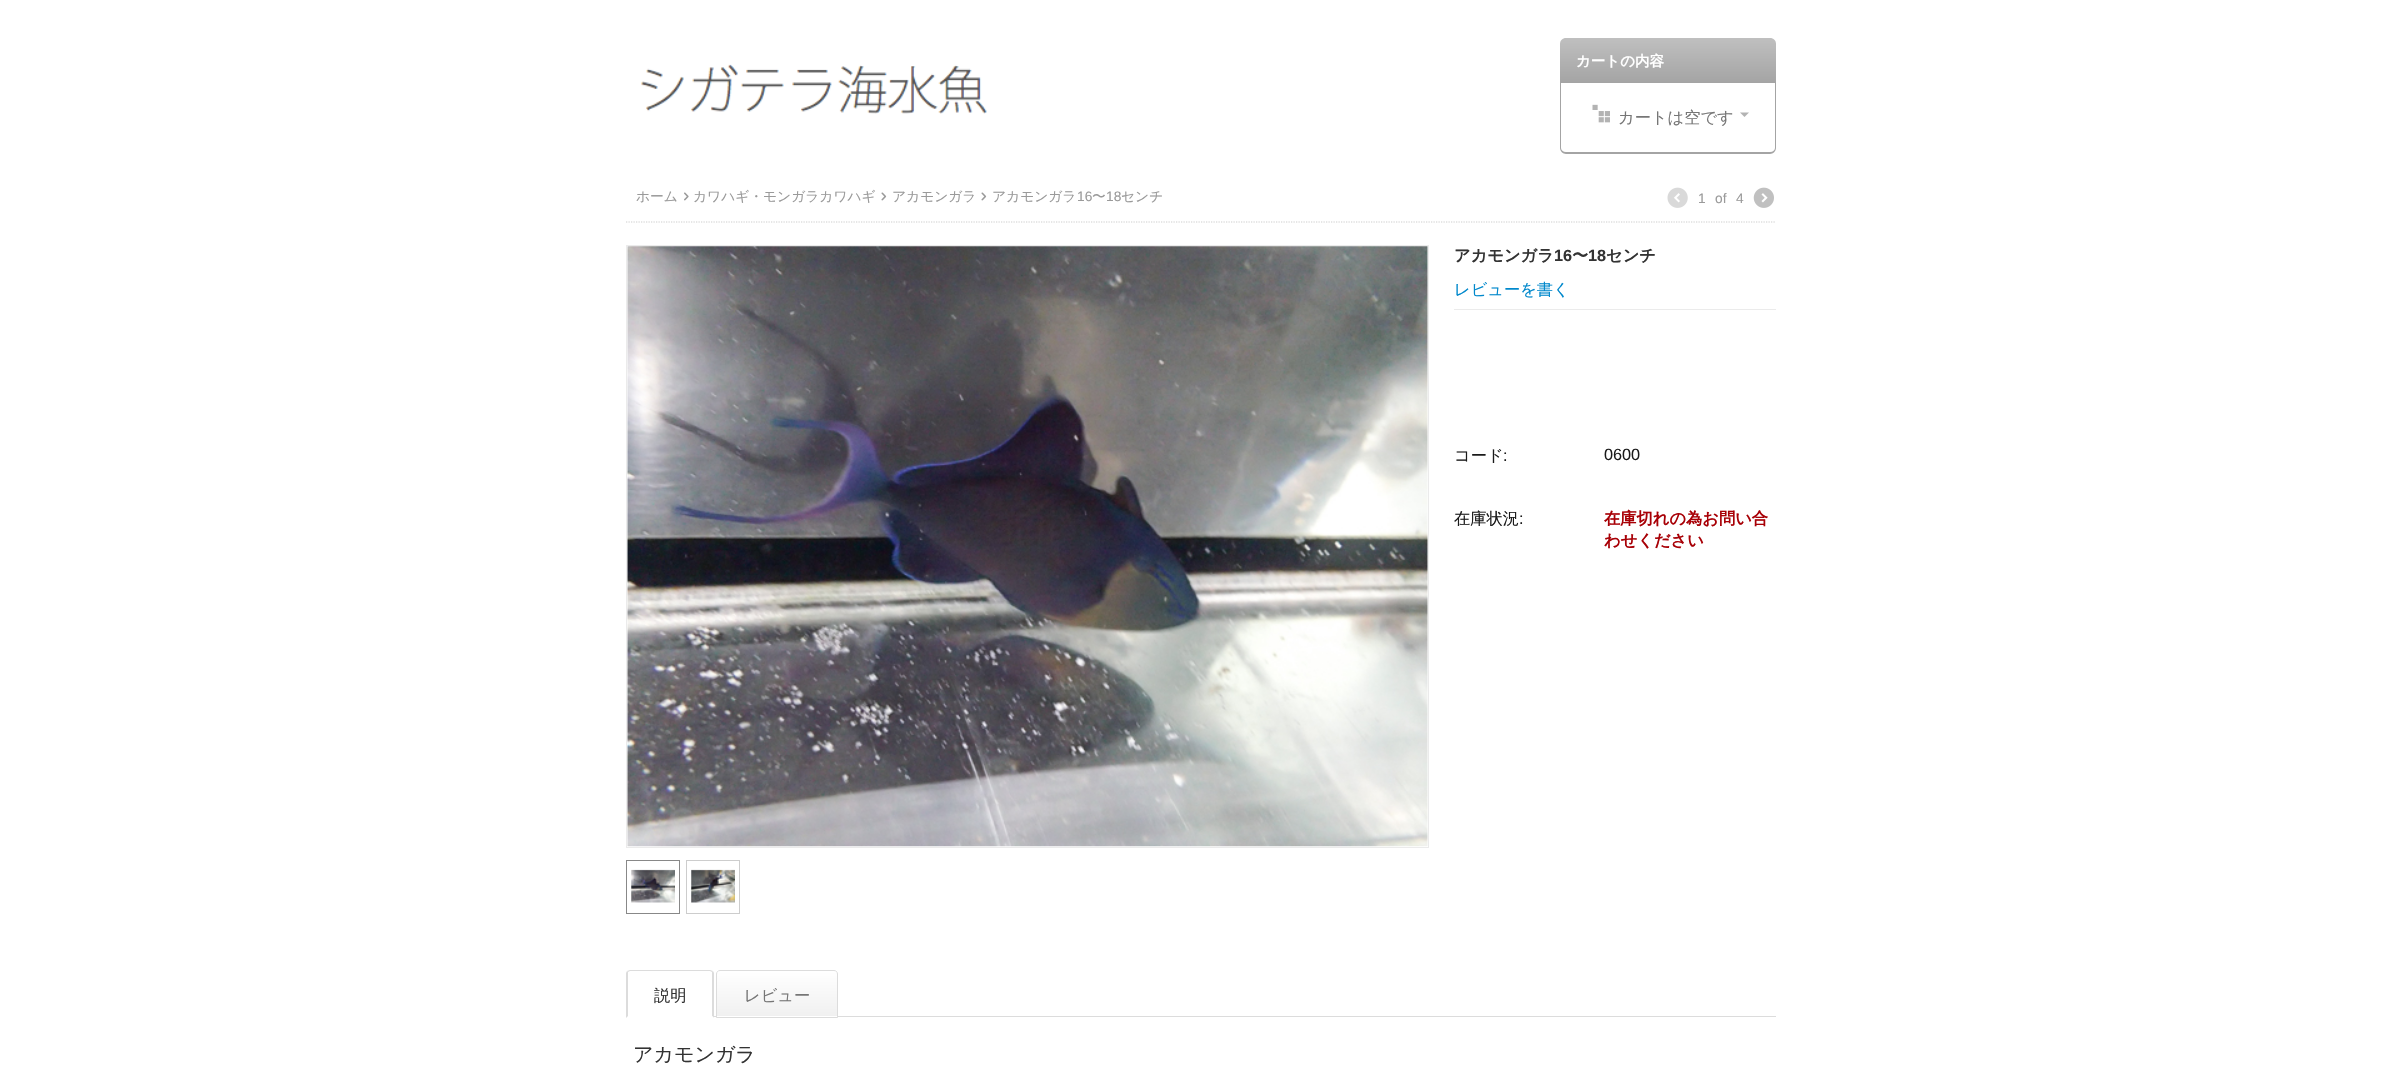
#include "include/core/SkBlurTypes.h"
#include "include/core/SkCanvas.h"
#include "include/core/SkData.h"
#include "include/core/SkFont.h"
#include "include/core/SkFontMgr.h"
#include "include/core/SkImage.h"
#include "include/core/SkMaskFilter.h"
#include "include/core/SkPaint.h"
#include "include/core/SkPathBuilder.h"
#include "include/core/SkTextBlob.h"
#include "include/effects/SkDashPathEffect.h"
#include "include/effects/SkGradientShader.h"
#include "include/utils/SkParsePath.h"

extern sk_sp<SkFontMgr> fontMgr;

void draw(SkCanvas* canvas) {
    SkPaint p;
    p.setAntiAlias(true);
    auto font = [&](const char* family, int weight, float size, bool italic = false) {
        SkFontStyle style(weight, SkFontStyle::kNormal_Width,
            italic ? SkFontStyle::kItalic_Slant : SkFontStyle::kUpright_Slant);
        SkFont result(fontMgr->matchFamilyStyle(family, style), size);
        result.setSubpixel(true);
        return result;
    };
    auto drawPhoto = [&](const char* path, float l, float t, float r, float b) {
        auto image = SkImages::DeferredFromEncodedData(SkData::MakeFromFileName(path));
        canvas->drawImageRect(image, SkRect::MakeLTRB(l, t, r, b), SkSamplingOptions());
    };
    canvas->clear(0xFFFFFFFF);
    drawPhoto("media/1.png", 641, 64, 987, 114);
    {
        const SkColor colors[] = {0xFFC0C0C0, 0xFFA4A4A4};
        const float stops[] = {0, 1};
        const SkPoint ends[] = {{1668, 37}, {1668, 83}};
        p.setShader(SkGradientShader::MakeLinear(ends, colors, stops, 2, SkTileMode::kClamp));
        p.setAlpha(255);
    }
    canvas->drawPath(SkPathBuilder().moveTo(1566, 38).lineTo(1770, 38).cubicTo(1773.5f, 38, 1776, 40.5f, 1776, 44).lineTo(1776, 83).lineTo(1560, 83).lineTo(1560, 44).cubicTo(1560, 40.5f, 1562.5f, 38, 1566, 38).close().detach(), p);
    auto font1 = font("WenQuanYi Zen Hei", 700, 14.5f);
    p.setShader(nullptr);
    p.setColor(0xFFFFFFFF);
    canvas->drawString("カートの内容", 1576, 66, font1, p);
    p.setColor(0xFFA4A4A4);
    canvas->drawPath(SkPathBuilder(SkPathFillType::kEvenOdd).moveTo(1560, 82).lineTo(1776, 82).lineTo(1776, 148).cubicTo(1776, 151, 1773, 154, 1770, 154).lineTo(1566, 154).cubicTo(1563, 154, 1560, 151, 1560, 148).close().moveTo(1561, 82).lineTo(1775, 82).lineTo(1775, 148).cubicTo(1775, 150, 1773, 152, 1770, 152).lineTo(1566, 152).cubicTo(1563, 152, 1561, 150, 1561, 148).close().detach(), p);
    drawPhoto("media/2.png", 1592, 104, 1610, 123);
    auto font2 = font("WenQuanYi Zen Hei", 500, 16.25f);
    p.setColor(0xFF767676);
    canvas->drawString("カートは空です", 1618, 123, font2, p);
    p.setColor(0xFFB3B3B3);
    canvas->drawPath(SkPathBuilder().moveTo(1744.5f, 117).lineTo(1740, 112.5f).lineTo(1749, 112.5f).close().detach(), p);
    p.setStyle(SkPaint::kStroke_Style);
    p.setStrokeWidth(1.2f);
    p.setColor(0xFFCDCDCD);
    p.setPathEffect(SkDashPathEffect::Make({{1.25f, 1.25f}}, 0));
    canvas->drawPath(SkPathBuilder().moveTo(626, 222).lineTo(1776, 222).detach(), p);
    p.setPathEffect(nullptr);
    auto font3 = font("WenQuanYi Zen Hei", 500, 13.75f);
    p.setStyle(SkPaint::kFill_Style);
    p.setColor(0xFF9A9A9A);
    canvas->drawString("ホーム", 636, 201, font3, p);
    drawPhoto("media/3.png", 684, 192, 689, 201);
    canvas->drawString("カワハギ・モンガラカワハギ", 693, 201, font3, p);
    drawPhoto("media/4.png", 881, 192, 887, 201);
    canvas->drawString("アカモンガラ", 892, 201, font3, p);
    drawPhoto("media/4.png", 981, 192, 987, 201);
    canvas->drawString("アカモンガラ", 992, 201, font3, p);
    auto font4 = font("Liberation Sans", 400, 13.75f);
    canvas->drawString("16", 1077, 201, font4, p);
    canvas->drawString("〜", 1092, 201, font3, p);
    canvas->drawString("18", 1106, 201, font4, p);
    canvas->drawString("センチ", 1121, 201, font3, p);
    drawPhoto("media/5.png", 1667, 187, 1688, 208);
    {
        const struct { const char* s; float x, y; } items[] = {
            {"1", 1698, 203},
            {"of", 1715, 203},
            {"4", 1736, 203},
        };
        for (auto [s, x, y] : items) {
            canvas->drawString(s, x, y, font4, p);
        }
    }
    drawPhoto("media/6.png", 1753, 187, 1774, 208);
    p.setStyle(SkPaint::kStroke_Style);
    p.setStrokeWidth(1);
    p.setColor(0xFFEBEBEB);
    canvas->drawRect(SkRect::MakeLTRB(626.5f, 245.5f, 1428.5f, 847.5f), p);
    drawPhoto("media/7.png", 627, 246, 1428, 847);
    p.setColor(0xFF888888);
    canvas->drawRect(SkRect::MakeLTRB(626.5f, 860.5f, 679.5f, 913.5f), p);
    drawPhoto("media/8.png", 631, 869, 675, 903);
    p.setColor(0xFFCDCDCD);
    canvas->drawRect(SkRect::MakeLTRB(686.5f, 860.5f, 739.5f, 913.5f), p);
    drawPhoto("media/9.png", 691, 869, 735, 903);
    auto font5 = font("WenQuanYi Zen Hei", 700, 16.25f);
    p.setStyle(SkPaint::kFill_Style);
    p.setColor(0xFF333333);
    canvas->drawString("アカモンガラ", 1454, 261, font5, p);
    auto font6 = font("Liberation Sans", 700, 16.25f);
    canvas->drawString("16", 1554, 261, font6, p);
    canvas->drawString("〜", 1572, 261, font5, p);
    canvas->drawString("18", 1588, 261, font6, p);
    canvas->drawString("センチ", 1606, 261, font5, p);
    p.setColor(0xFF0088CC);
    canvas->drawString("レビューを書く", 1454, 295, font2, p);
    p.setColor(0xFFEBEBEB);
    canvas->drawRect(SkRect::MakeLTRB(1454, 309, 1776, 310), p);
    p.setColor(0xFF1A1A1A);
    canvas->drawString("コード", 1454, 461, font2, p);
    auto font7 = font("Liberation Sans", 400, 16.25f);
    canvas->drawString(":", 1503, 461, font7, p);
    canvas->drawString("0600", 1604, 460, font7, p);
    canvas->drawString("在庫状況", 1454, 524, font2, p);
    canvas->drawString(":", 1519, 524, font7, p);
    p.setColor(0xFFA80006);
    canvas->drawString("在庫切れの為お問い合", 1604, 524, font5, p);
    canvas->drawString("わせください", 1604, 546, font5, p);
    p.setColor(0xFFDCDCDC);
    canvas->drawRect(SkRect::MakeLTRB(714, 1016, 1776, 1017), p);
    canvas->drawPath(SkPathBuilder().moveTo(630, 970).lineTo(627, 971).lineTo(628, 972).lineTo(630, 971).lineTo(710, 971).lineTo(712, 972).lineTo(713, 971).lineTo(710, 970).close().detach(), p);
    canvas->drawPath(SkPathBuilder().moveTo(713, 971).lineTo(714, 973).lineTo(714, 1018).lineTo(712, 1016).lineTo(712, 972).close().detach(), p);
    p.setColor(0xFFFFFFFF);
    canvas->drawPath(SkPathBuilder().moveTo(714, 1018).lineTo(712, 1016).lineTo(628, 1016).lineTo(626, 1018).close().detach(), p);
    p.setColor(0xFFDCDCDC);
    canvas->drawPath(SkPathBuilder().moveTo(626, 1018).lineTo(626, 973).lineTo(627, 971).lineTo(628, 972).lineTo(628, 1016).close().detach(), p);
    p.setColor(0xFF333333);
    canvas->drawString("説明", 654, 1001, font2, p);
    canvas->save();
    canvas->clipPath(SkPathBuilder().moveTo(720, 970).lineTo(834, 970).cubicTo(836, 970, 838, 972, 838, 974).lineTo(838, 1018).lineTo(716, 1018).lineTo(716, 974).cubicTo(716, 972, 718, 970, 720, 970).close().detach(), true);
    {
        const SkColor colors[] = {0xFFFFFFFF, 0xFFF0F0F0};
        const float stops[] = {0, 1};
        const SkPoint ends[] = {{777, 971}, {777, 1016}};
        p.setShader(SkGradientShader::MakeLinear(ends, colors, stops, 2, SkTileMode::kClamp));
        p.setAlpha(255);
    }
    canvas->drawRect(SkRect::MakeLTRB(716, 971, 838, 1016), p);
    canvas->restore();
    {
        const SkColor colors[] = {0xFFFFFFFF, 0xFFF0F0F0};
        const float stops[] = {0, 1};
        const SkPoint ends[] = {{777, 1016}, {777, 1061}};
        p.setShader(SkGradientShader::MakeLinear(ends, colors, stops, 2, SkTileMode::kClamp));
        p.setAlpha(255);
    }
    canvas->drawRect(SkRect::MakeLTRB(716, 1016, 838, 1017), p);
    p.setStyle(SkPaint::kStroke_Style);
    p.setShader(nullptr);
    p.setColor(0xFFDCDCDC);
    canvas->drawPath(SkPathBuilder().moveTo(720, 970.5f).lineTo(834, 970.5f).cubicTo(836, 970.5f, 837.5f, 972, 837.5f, 974).lineTo(837.5f, 1017.5f).lineTo(716.5f, 1017.5f).lineTo(716.5f, 974).cubicTo(716.5f, 972, 718, 970.5f, 720, 970.5f).close().detach(), p);
    p.setStyle(SkPaint::kFill_Style);
    p.setColor(0xFF767676);
    canvas->drawString("レビュー", 744, 1001, font2, p);
    auto font8 = font("WenQuanYi Zen Hei", 500, 20);
    p.setColor(0xFF333333);
    canvas->drawString("アカモンガラ", 633, 1061, font8, p);
}
